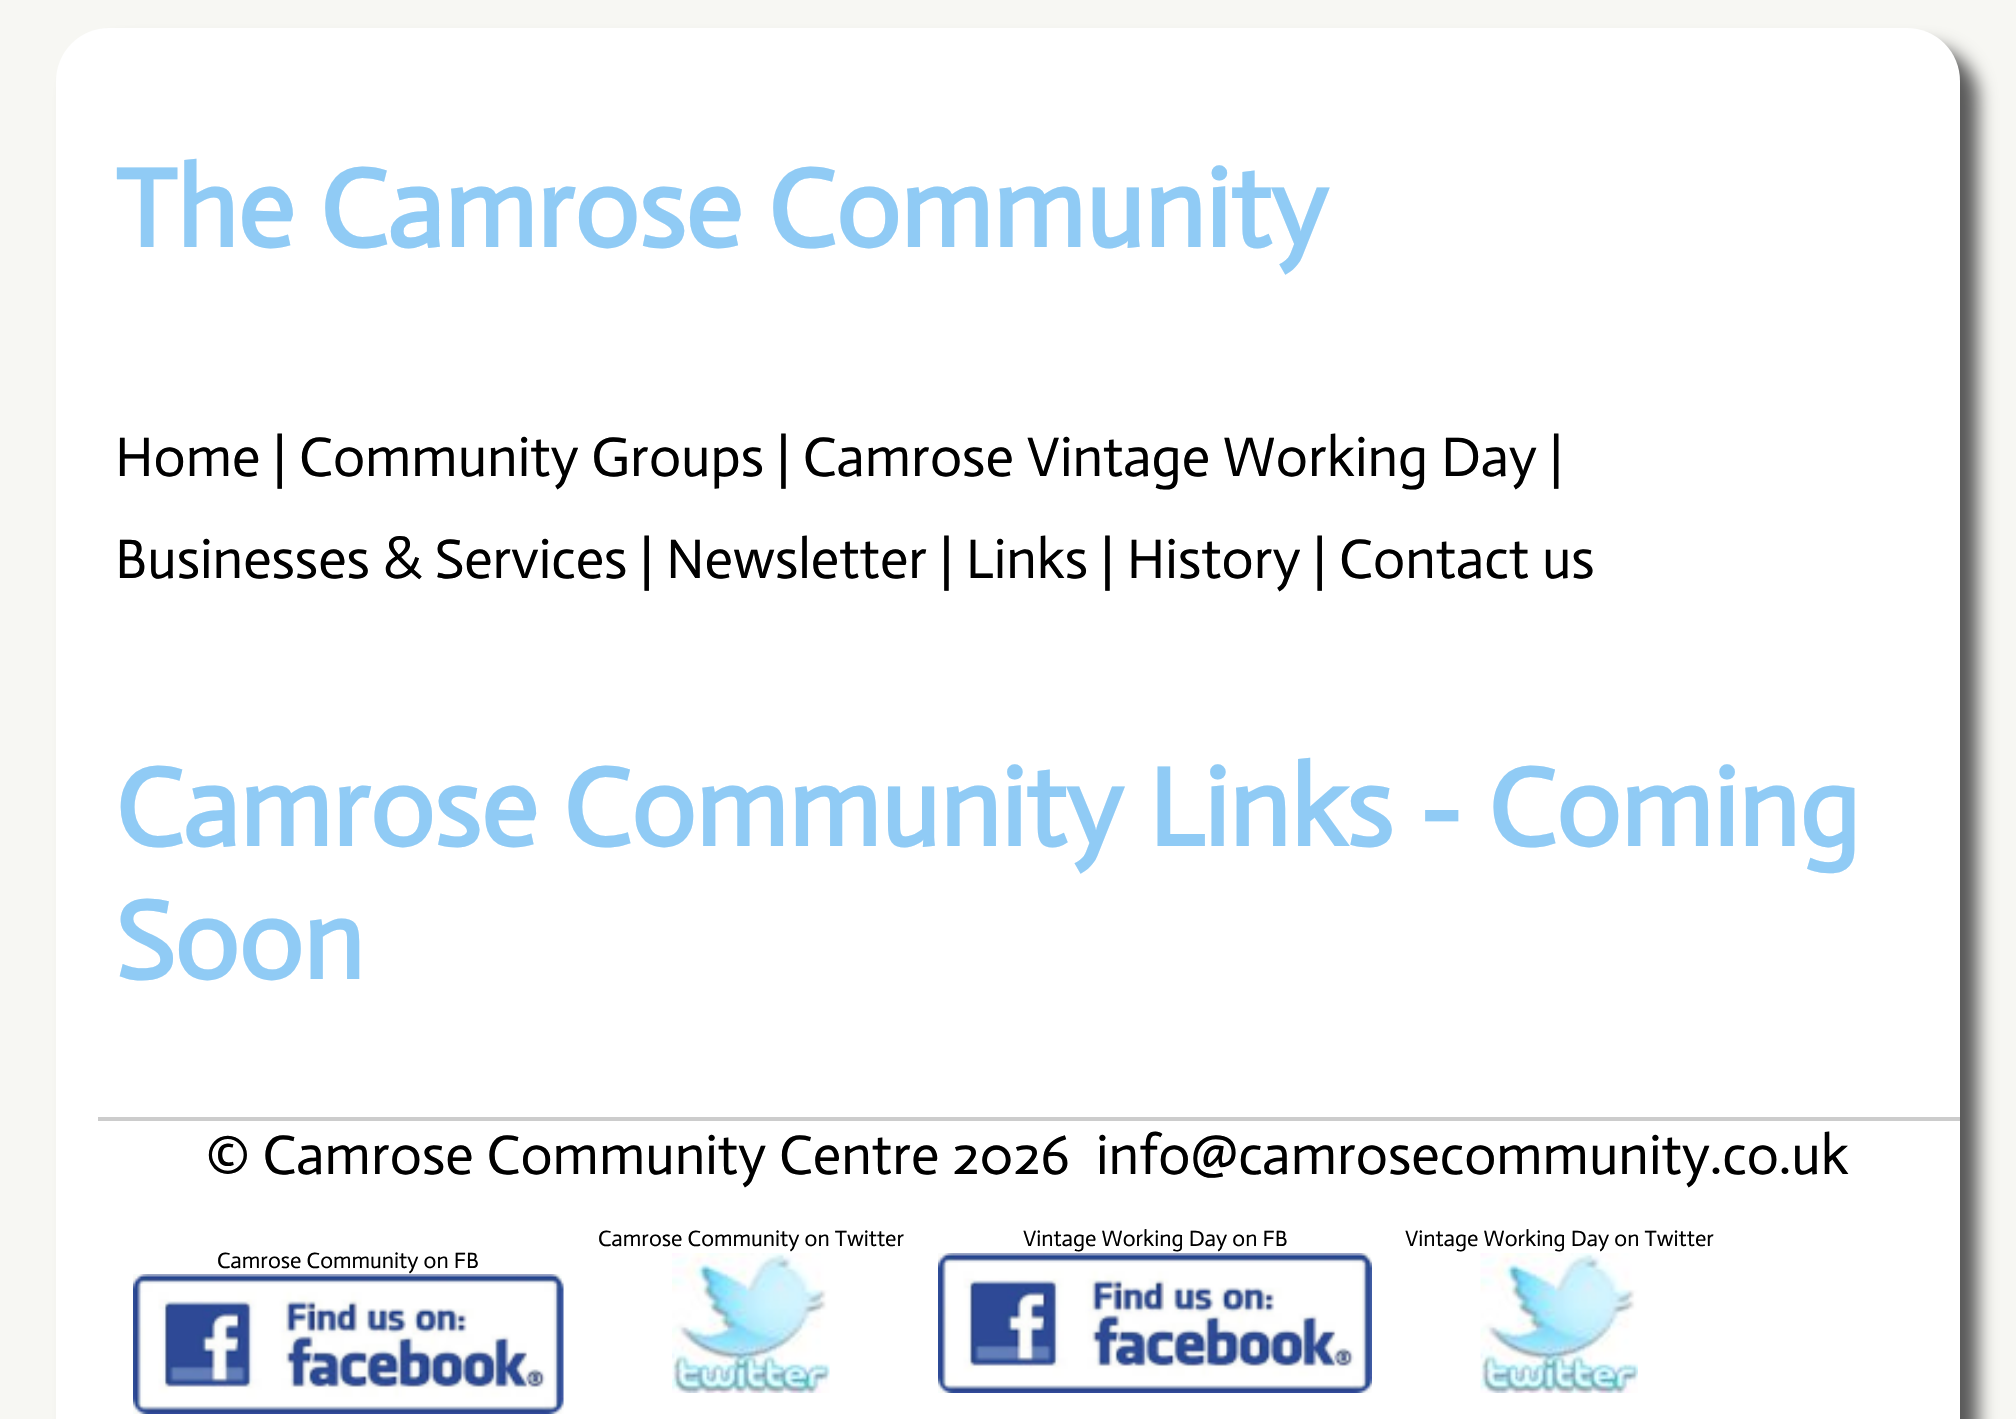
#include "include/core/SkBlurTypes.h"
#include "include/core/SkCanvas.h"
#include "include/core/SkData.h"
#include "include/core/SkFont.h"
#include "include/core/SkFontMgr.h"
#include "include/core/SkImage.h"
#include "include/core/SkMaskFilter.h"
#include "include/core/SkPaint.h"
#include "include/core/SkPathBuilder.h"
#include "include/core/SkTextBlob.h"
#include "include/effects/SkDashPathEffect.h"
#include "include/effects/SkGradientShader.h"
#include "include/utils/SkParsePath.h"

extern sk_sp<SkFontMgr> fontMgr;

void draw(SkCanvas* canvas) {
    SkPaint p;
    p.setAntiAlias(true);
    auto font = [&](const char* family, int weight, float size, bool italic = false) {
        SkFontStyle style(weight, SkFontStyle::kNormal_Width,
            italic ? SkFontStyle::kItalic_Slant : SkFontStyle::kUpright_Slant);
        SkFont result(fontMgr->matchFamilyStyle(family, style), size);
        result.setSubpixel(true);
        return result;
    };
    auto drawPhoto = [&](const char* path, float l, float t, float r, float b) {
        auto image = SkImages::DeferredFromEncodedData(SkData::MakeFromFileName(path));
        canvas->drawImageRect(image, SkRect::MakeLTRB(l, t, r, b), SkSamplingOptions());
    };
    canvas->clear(0xFFF7F7F3);
    p.setColor(0xFF585858);
    p.setMaskFilter(SkMaskFilter::MakeBlur(kNormal_SkBlurStyle, 9));
    canvas->drawRoundRect(SkRect::MakeLTRB(74, 46, 1978, 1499), 53, 53, p);
    p.setMaskFilter(nullptr);
    p.setColor(0xFFFFFFFF);
    canvas->drawRoundRect(SkRect::MakeLTRB(56, 28, 1960, 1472), 53, 53, p);
    auto font1 = font("Actor", 700, 112);
    p.setColor(0xFF90CBF5);
    canvas->drawString("The Camrose Community", 115, 247, font1, p);
    auto font2 = font("Actor", 400, 56);
    p.setColor(0xFF000000);
    canvas->drawString("Home | Community Groups | Camrose Vintage Working Day |", 115, 476, font2, p);
    canvas->drawString("Businesses & Services | Newsletter | Links | History | Contact us", 115, 578, font2, p);
    p.setColor(0xFF90CBF5);
    canvas->drawString("Camrose Community Links - Coming", 115, 846, font1, p);
    canvas->drawString("Soon", 115, 979, font1, p);
    p.setColor(0xFFCCCCCC);
    canvas->drawRect(SkRect::MakeLTRB(98, 1117, 1960, 1121), p);
    p.setColor(0xFF000000);
    canvas->drawString("© Camrose Community Centre 2026", 206, 1174, font2, p);
    canvas->drawString("info@camrosecommunity.co.uk", 1096, 1174, font2, p);
    auto font3 = font("Actor", 400, 22.4f);
    canvas->drawString("Camrose Community on Twitter", 598, 1246, font3, p);
    drawPhoto("media/1.png", 672, 1253, 830, 1393);
    canvas->drawString("Vintage Working Day on FB", 1023, 1246, font3, p);
    drawPhoto("media/2.png", 938, 1253, 1372, 1393);
    canvas->drawString("Vintage Working Day on Twitter", 1405, 1246, font3, p);
    drawPhoto("media/3.png", 1480, 1253, 1638, 1393);
    canvas->drawString("Camrose Community on FB", 217, 1268, font3, p);
    drawPhoto("media/4.png", 133, 1274, 564, 1414);
}
